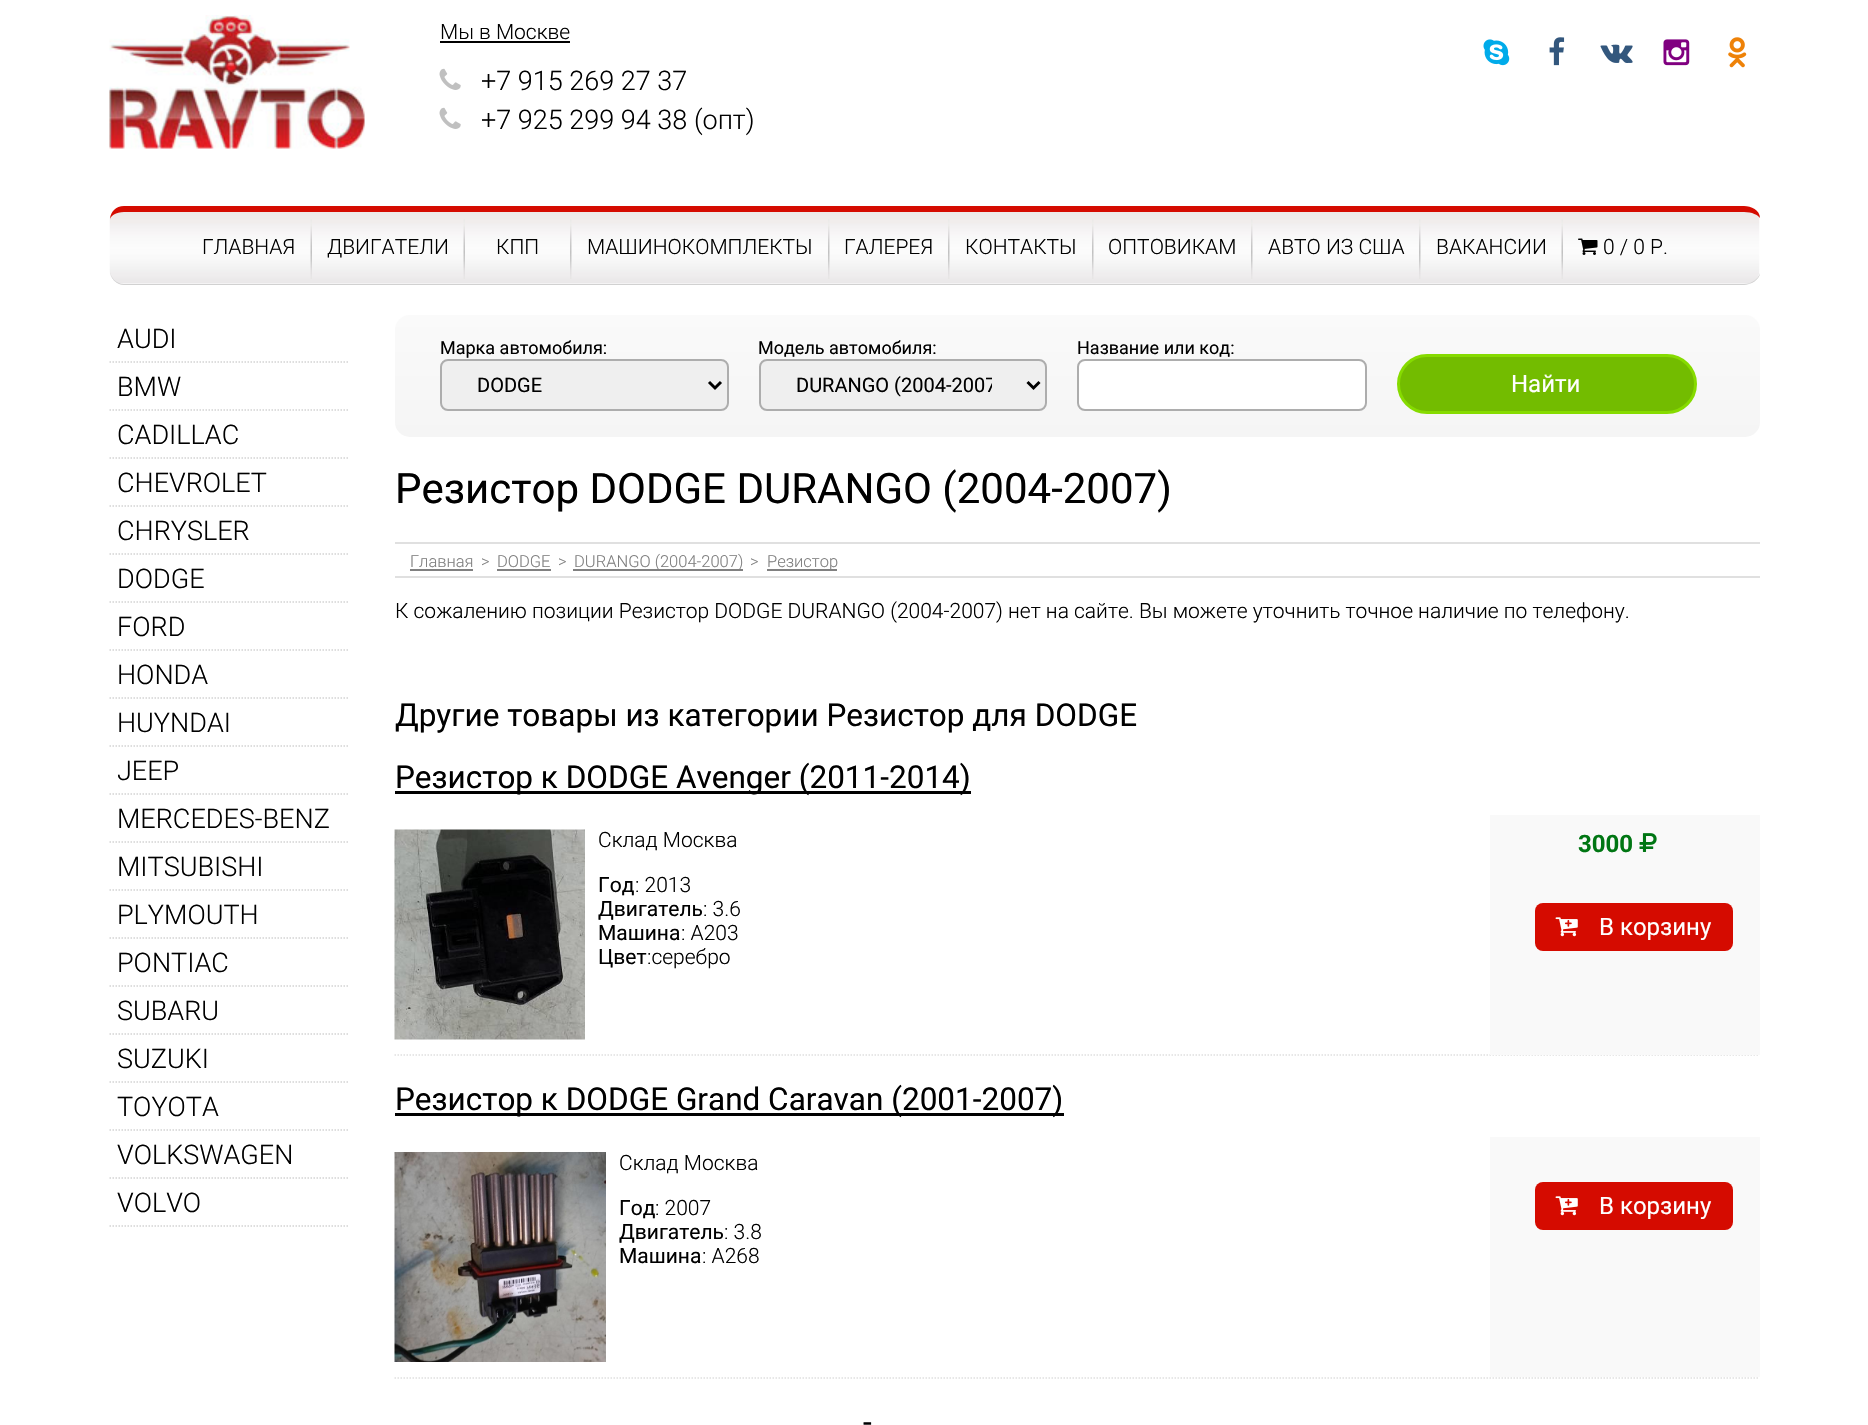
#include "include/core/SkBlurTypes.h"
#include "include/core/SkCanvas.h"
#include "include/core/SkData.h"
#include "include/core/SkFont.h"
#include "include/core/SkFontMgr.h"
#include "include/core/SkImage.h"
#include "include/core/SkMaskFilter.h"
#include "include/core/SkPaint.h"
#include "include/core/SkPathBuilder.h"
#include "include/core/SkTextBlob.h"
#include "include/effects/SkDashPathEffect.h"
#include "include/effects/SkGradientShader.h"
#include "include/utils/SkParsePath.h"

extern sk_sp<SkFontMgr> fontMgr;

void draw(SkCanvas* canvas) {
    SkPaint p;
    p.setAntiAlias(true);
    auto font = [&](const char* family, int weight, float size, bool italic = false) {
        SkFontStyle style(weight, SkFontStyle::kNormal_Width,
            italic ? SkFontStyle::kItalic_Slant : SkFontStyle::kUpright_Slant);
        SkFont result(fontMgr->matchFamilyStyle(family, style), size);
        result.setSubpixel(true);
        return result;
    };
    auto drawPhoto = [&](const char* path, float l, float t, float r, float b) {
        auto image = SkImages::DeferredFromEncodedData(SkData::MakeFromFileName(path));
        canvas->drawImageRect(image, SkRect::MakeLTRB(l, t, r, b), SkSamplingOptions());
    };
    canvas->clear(0xFFFFFFFF);
    drawPhoto("media/1.png", 109, 15, 365, 149);
    auto font1 = font("Roboto", 300, 21);
    p.setColor(0xFF000000);
    canvas->drawString("Мы в Москве", 440, 39, font1, p);
    canvas->drawRect(SkRect::MakeLTRB(440, 41, 570, 43), p);
    drawPhoto("media/2.png", 439, 68, 461, 90);
    auto font2 = font("Roboto", 300, 27);
    canvas->drawString("+7 915 269 27 37", 481, 90, font2, p);
    drawPhoto("media/2.png", 439, 107, 461, 129);
    canvas->drawString("+7 925 299 94 38 (опт)", 481, 129, font2, p);
    drawPhoto("media/3.png", 1483, 39, 1510, 66);
    drawPhoto("media/4.png", 1549, 37, 1565, 66);
    drawPhoto("media/5.png", 1600, 44, 1633, 63);
    drawPhoto("media/6.png", 1663, 39, 1690, 66);
    drawPhoto("media/7.png", 1728, 37, 1747, 68);
    drawPhoto("media/8.png", 109, 211, 1760, 284);
    p.setColor(0xFFD50B00);
    canvas->drawPath(SkPathBuilder().moveTo(124, 206).lineTo(1744, 206).cubicTo(1751, 206, 1760, 210, 1760, 218).cubicTo(1758, 215, 1752, 212, 1744, 212).lineTo(124, 212).cubicTo(116, 212, 110, 216, 110, 220).cubicTo(110, 212, 116, 206, 124, 206).close().detach(), p);
    p.setColor(0xFFD1D1D1);
    canvas->drawPath(SkPathBuilder().moveTo(124, 285).lineTo(1744, 285).cubicTo(1750, 285, 1760, 280, 1760, 273).cubicTo(1758, 279, 1752, 284, 1744, 284).lineTo(124, 284).cubicTo(116, 284, 110, 277, 110, 270).cubicTo(110, 278, 116, 285, 124, 285).close().detach(), p);
    p.setColor(0xFF000000);
    canvas->drawString("ГЛАВНАЯ", 202, 254, font1, p);
    drawPhoto("media/9.png", 310, 219, 312, 279);
    canvas->drawString("ДВИГАТЕЛИ", 327, 254, font1, p);
    drawPhoto("media/9.png", 463, 219, 465, 279);
    canvas->drawString("КПП", 496, 254, font1, p);
    drawPhoto("media/10.png", 570, 219, 572, 279);
    canvas->drawString("МАШИНОКОМПЛЕКТЫ", 587, 254, font1, p);
    drawPhoto("media/10.png", 828, 219, 830, 279);
    canvas->drawString("ГАЛЕРЕЯ", 844, 254, font1, p);
    drawPhoto("media/10.png", 948, 219, 950, 279);
    canvas->drawString("КОНТАКТЫ", 965, 254, font1, p);
    drawPhoto("media/10.png", 1092, 219, 1094, 279);
    canvas->drawString("ОПТОВИКАМ", 1108, 254, font1, p);
    drawPhoto("media/10.png", 1251, 219, 1253, 279);
    canvas->drawString("АВТО ИЗ США", 1268, 254, font1, p);
    drawPhoto("media/10.png", 1419, 219, 1421, 279);
    canvas->drawString("ВАКАНСИИ", 1436, 254, font1, p);
    drawPhoto("media/9.png", 1561, 219, 1563, 279);
    drawPhoto("media/11.png", 1578, 238, 1598, 255);
    canvas->drawString("0 / 0 Р.", 1603, 254, font1, p);
    p.setStyle(SkPaint::kStroke_Style);
    p.setStrokeWidth(1.5f);
    p.setColor(0xFFD4D4D4);
    p.setPathEffect(SkDashPathEffect::Make({{1.5f, 1.5f}}, 0));
    canvas->drawPath(SkPathBuilder().moveTo(109.5f, 362).lineTo(349.5f, 362).detach(), p);
    p.setPathEffect(nullptr);
    p.setStyle(SkPaint::kFill_Style);
    p.setColor(0xFF000000);
    canvas->drawString("AUDI", 117, 348, font2, p);
    p.setStyle(SkPaint::kStroke_Style);
    p.setColor(0xFFD4D4D4);
    p.setPathEffect(SkDashPathEffect::Make({{1.5f, 1.5f}}, 0));
    canvas->drawPath(SkPathBuilder().moveTo(109.5f, 410).lineTo(349.5f, 410).detach(), p);
    p.setPathEffect(nullptr);
    p.setStyle(SkPaint::kFill_Style);
    p.setColor(0xFF000000);
    canvas->drawString("BMW", 117, 396, font2, p);
    p.setStyle(SkPaint::kStroke_Style);
    p.setColor(0xFFD4D4D4);
    p.setPathEffect(SkDashPathEffect::Make({{1.5f, 1.5f}}, 0));
    canvas->drawPath(SkPathBuilder().moveTo(109.5f, 458).lineTo(349.5f, 458).detach(), p);
    p.setPathEffect(nullptr);
    p.setStyle(SkPaint::kFill_Style);
    p.setColor(0xFF000000);
    canvas->drawString("CADILLAC", 117, 444, font2, p);
    p.setStyle(SkPaint::kStroke_Style);
    p.setColor(0xFFD4D4D4);
    p.setPathEffect(SkDashPathEffect::Make({{1.5f, 1.5f}}, 0));
    canvas->drawPath(SkPathBuilder().moveTo(109.5f, 506).lineTo(349.5f, 506).detach(), p);
    p.setPathEffect(nullptr);
    p.setStyle(SkPaint::kFill_Style);
    p.setColor(0xFF000000);
    canvas->drawString("CHEVROLET", 117, 492, font2, p);
    p.setStyle(SkPaint::kStroke_Style);
    p.setColor(0xFFD4D4D4);
    p.setPathEffect(SkDashPathEffect::Make({{1.5f, 1.5f}}, 0));
    canvas->drawPath(SkPathBuilder().moveTo(109.5f, 554).lineTo(349.5f, 554).detach(), p);
    p.setPathEffect(nullptr);
    p.setStyle(SkPaint::kFill_Style);
    p.setColor(0xFF000000);
    canvas->drawString("CHRYSLER", 117, 540, font2, p);
    p.setStyle(SkPaint::kStroke_Style);
    p.setColor(0xFFD4D4D4);
    p.setPathEffect(SkDashPathEffect::Make({{1.5f, 1.5f}}, 0));
    canvas->drawPath(SkPathBuilder().moveTo(109.5f, 602).lineTo(349.5f, 602).detach(), p);
    p.setPathEffect(nullptr);
    p.setStyle(SkPaint::kFill_Style);
    p.setColor(0xFF000000);
    canvas->drawString("DODGE", 117, 588, font2, p);
    p.setStyle(SkPaint::kStroke_Style);
    p.setColor(0xFFD4D4D4);
    p.setPathEffect(SkDashPathEffect::Make({{1.5f, 1.5f}}, 0));
    canvas->drawPath(SkPathBuilder().moveTo(109.5f, 650).lineTo(349.5f, 650).detach(), p);
    p.setPathEffect(nullptr);
    p.setStyle(SkPaint::kFill_Style);
    p.setColor(0xFF000000);
    canvas->drawString("FORD", 117, 636, font2, p);
    p.setStyle(SkPaint::kStroke_Style);
    p.setColor(0xFFD4D4D4);
    p.setPathEffect(SkDashPathEffect::Make({{1.5f, 1.5f}}, 0));
    canvas->drawPath(SkPathBuilder().moveTo(109.5f, 698).lineTo(349.5f, 698).detach(), p);
    p.setPathEffect(nullptr);
    p.setStyle(SkPaint::kFill_Style);
    p.setColor(0xFF000000);
    canvas->drawString("HONDA", 117, 684, font2, p);
    p.setStyle(SkPaint::kStroke_Style);
    p.setColor(0xFFD4D4D4);
    p.setPathEffect(SkDashPathEffect::Make({{1.5f, 1.5f}}, 0));
    canvas->drawPath(SkPathBuilder().moveTo(109.5f, 746).lineTo(349.5f, 746).detach(), p);
    p.setPathEffect(nullptr);
    p.setStyle(SkPaint::kFill_Style);
    p.setColor(0xFF000000);
    canvas->drawString("HUYNDAI", 117, 732, font2, p);
    p.setStyle(SkPaint::kStroke_Style);
    p.setColor(0xFFD4D4D4);
    p.setPathEffect(SkDashPathEffect::Make({{1.5f, 1.5f}}, 0));
    canvas->drawPath(SkPathBuilder().moveTo(109.5f, 794).lineTo(349.5f, 794).detach(), p);
    p.setPathEffect(nullptr);
    p.setStyle(SkPaint::kFill_Style);
    p.setColor(0xFF000000);
    canvas->drawString("JEEP", 117, 780, font2, p);
    p.setStyle(SkPaint::kStroke_Style);
    p.setColor(0xFFD4D4D4);
    p.setPathEffect(SkDashPathEffect::Make({{1.5f, 1.5f}}, 0));
    canvas->drawPath(SkPathBuilder().moveTo(109.5f, 842).lineTo(349.5f, 842).detach(), p);
    p.setPathEffect(nullptr);
    p.setStyle(SkPaint::kFill_Style);
    p.setColor(0xFF000000);
    canvas->drawString("MERCEDES-BENZ", 117, 828, font2, p);
    p.setStyle(SkPaint::kStroke_Style);
    p.setColor(0xFFD4D4D4);
    p.setPathEffect(SkDashPathEffect::Make({{1.5f, 1.5f}}, 0));
    canvas->drawPath(SkPathBuilder().moveTo(109.5f, 890).lineTo(349.5f, 890).detach(), p);
    p.setPathEffect(nullptr);
    p.setStyle(SkPaint::kFill_Style);
    p.setColor(0xFF000000);
    canvas->drawString("MITSUBISHI", 117, 876, font2, p);
    p.setStyle(SkPaint::kStroke_Style);
    p.setColor(0xFFD4D4D4);
    p.setPathEffect(SkDashPathEffect::Make({{1.5f, 1.5f}}, 0));
    canvas->drawPath(SkPathBuilder().moveTo(109.5f, 938).lineTo(349.5f, 938).detach(), p);
    p.setPathEffect(nullptr);
    p.setStyle(SkPaint::kFill_Style);
    p.setColor(0xFF000000);
    canvas->drawString("PLYMOUTH", 117, 924, font2, p);
    p.setStyle(SkPaint::kStroke_Style);
    p.setColor(0xFFD4D4D4);
    p.setPathEffect(SkDashPathEffect::Make({{1.5f, 1.5f}}, 0));
    canvas->drawPath(SkPathBuilder().moveTo(109.5f, 986).lineTo(349.5f, 986).detach(), p);
    p.setPathEffect(nullptr);
    p.setStyle(SkPaint::kFill_Style);
    p.setColor(0xFF000000);
    canvas->drawString("PONTIAC", 117, 972, font2, p);
    p.setStyle(SkPaint::kStroke_Style);
    p.setColor(0xFFD4D4D4);
    p.setPathEffect(SkDashPathEffect::Make({{1.5f, 1.5f}}, 0));
    canvas->drawPath(SkPathBuilder().moveTo(109.5f, 1034).lineTo(349.5f, 1034).detach(), p);
    p.setPathEffect(nullptr);
    p.setStyle(SkPaint::kFill_Style);
    p.setColor(0xFF000000);
    canvas->drawString("SUBARU", 117, 1020, font2, p);
    p.setStyle(SkPaint::kStroke_Style);
    p.setColor(0xFFD4D4D4);
    p.setPathEffect(SkDashPathEffect::Make({{1.5f, 1.5f}}, 0));
    canvas->drawPath(SkPathBuilder().moveTo(109.5f, 1082).lineTo(349.5f, 1082).detach(), p);
    p.setPathEffect(nullptr);
    p.setStyle(SkPaint::kFill_Style);
    p.setColor(0xFF000000);
    canvas->drawString("SUZUKI", 117, 1068, font2, p);
    p.setStyle(SkPaint::kStroke_Style);
    p.setColor(0xFFD4D4D4);
    p.setPathEffect(SkDashPathEffect::Make({{1.5f, 1.5f}}, 0));
    canvas->drawPath(SkPathBuilder().moveTo(109.5f, 1130).lineTo(349.5f, 1130).detach(), p);
    p.setPathEffect(nullptr);
    p.setStyle(SkPaint::kFill_Style);
    p.setColor(0xFF000000);
    canvas->drawString("TOYOTA", 117, 1116, font2, p);
    p.setStyle(SkPaint::kStroke_Style);
    p.setColor(0xFFD4D4D4);
    p.setPathEffect(SkDashPathEffect::Make({{1.5f, 1.5f}}, 0));
    canvas->drawPath(SkPathBuilder().moveTo(109.5f, 1178).lineTo(349.5f, 1178).detach(), p);
    p.setPathEffect(nullptr);
    p.setStyle(SkPaint::kFill_Style);
    p.setColor(0xFF000000);
    canvas->drawString("VOLKSWAGEN", 117, 1164, font2, p);
    p.setStyle(SkPaint::kStroke_Style);
    p.setColor(0xFFD4D4D4);
    p.setPathEffect(SkDashPathEffect::Make({{1.5f, 1.5f}}, 0));
    canvas->drawPath(SkPathBuilder().moveTo(109.5f, 1226).lineTo(349.5f, 1226).detach(), p);
    p.setPathEffect(nullptr);
    p.setStyle(SkPaint::kFill_Style);
    p.setColor(0xFF000000);
    canvas->drawString("VOLVO", 117, 1212, font2, p);
    {
        const SkColor colors[] = {0xFFF5F5F5, 0xFFFAFAFA};
        const float stops[] = {0, 1};
        const SkPoint ends[] = {{1077, 437}, {1077, 315}};
        p.setShader(SkGradientShader::MakeLinear(ends, colors, stops, 2, SkTileMode::kClamp));
        p.setAlpha(255);
    }
    canvas->drawRoundRect(SkRect::MakeLTRB(395, 315, 1760, 437), 15, 15, p);
    auto font3 = font("Roboto", 400, 18);
    p.setShader(nullptr);
    p.setColor(0xFF000000);
    canvas->drawString("Марка автомобиля:", 440, 354, font3, p);
    p.setColor(0xFFEFEFEF);
    canvas->drawRoundRect(SkRect::MakeLTRB(441, 360, 728, 410), 7, 7, p);
    p.setStyle(SkPaint::kStroke_Style);
    p.setStrokeWidth(2);
    p.setColor(0xFFADADAD);
    canvas->drawRoundRect(SkRect::MakeLTRB(441, 360, 728, 410), 7, 7, p);
    p.setStrokeWidth(3);
    p.setColor(0xFF000000);
    canvas->drawPath(SkPathBuilder().moveTo(709, 382).lineTo(715, 388).lineTo(721, 382).detach(), p);
    auto font4 = font("Roboto", 400, 20);
    p.setStyle(SkPaint::kFill_Style);
    canvas->drawString("DODGE", 477, 392, font4, p);
    canvas->drawString("Модель автомобиля:", 758, 354, font3, p);
    p.setColor(0xFFEFEFEF);
    canvas->drawRoundRect(SkRect::MakeLTRB(760, 360, 1046, 410), 7, 7, p);
    p.setStyle(SkPaint::kStroke_Style);
    p.setStrokeWidth(2);
    p.setColor(0xFFADADAD);
    canvas->drawRoundRect(SkRect::MakeLTRB(760, 360, 1046, 410), 7, 7, p);
    p.setStrokeWidth(3);
    p.setColor(0xFF000000);
    canvas->drawPath(SkPathBuilder().moveTo(1027.5f, 382).lineTo(1033.5f, 388).lineTo(1039.5f, 382).detach(), p);
    canvas->save();
    canvas->clipRect(SkRect::MakeLTRB(797, 372, 992, 398));
    p.setStyle(SkPaint::kFill_Style);
    canvas->drawString("DURANGO (2004-2007", 796, 392, font4, p);
    canvas->restore();
    canvas->drawString("Название или код:", 1077, 354, font3, p);
    p.setColor(0xFFFFFFFF);
    canvas->drawRoundRect(SkRect::MakeLTRB(1078, 360, 1366, 410), 7, 7, p);
    p.setStyle(SkPaint::kStroke_Style);
    p.setStrokeWidth(2);
    p.setColor(0xFFADADAD);
    canvas->drawRoundRect(SkRect::MakeLTRB(1078, 360, 1366, 410), 7, 7, p);
    p.setStyle(SkPaint::kFill_Style);
    p.setColor(0xFF73BC00);
    canvas->drawRoundRect(SkRect::MakeLTRB(1398.5f, 355.5f, 1695.5f, 412.5f), 28.5f, 28.5f, p);
    p.setStyle(SkPaint::kStroke_Style);
    p.setStrokeWidth(3);
    p.setColor(0xFF86DB00);
    canvas->drawRoundRect(SkRect::MakeLTRB(1398.5f, 355.5f, 1695.5f, 412.5f), 28.5f, 28.5f, p);
    auto font5 = font("Roboto", 400, 24);
    p.setStyle(SkPaint::kFill_Style);
    p.setColor(0xFFFFFFFF);
    canvas->drawString("Найти", 1511, 392, font5, p);
    auto font6 = font("Roboto", 400, 42);
    p.setColor(0xFF000000);
    canvas->drawString("Резистор DODGE DURANGO (2004-2007)", 395, 503, font6, p);
    p.setColor(0xFFE0E0E0);
    canvas->drawRect(SkRect::MakeLTRB(395, 542, 1760, 544), p);
    canvas->drawRect(SkRect::MakeLTRB(395, 576, 1760, 578), p);
    auto font7 = font("Roboto", 300, 16.5f);
    p.setColor(0xFF808080);
    canvas->drawString("Главная", 410, 567, font7, p);
    canvas->drawRect(SkRect::MakeLTRB(410, 569, 473, 571), p);
    canvas->drawString(">", 481, 567, font7, p);
    canvas->drawString("DODGE", 497, 567, font7, p);
    canvas->drawRect(SkRect::MakeLTRB(497, 569, 551, 571), p);
    canvas->drawString(">", 558, 567, font7, p);
    canvas->drawRect(SkRect::MakeLTRB(573, 569, 743, 571), p);
    canvas->drawString("DURANGO (2004-2007)", 574, 567, font7, p);
    canvas->drawString(">", 750, 567, font7, p);
    canvas->drawRect(SkRect::MakeLTRB(767, 569, 837, 571), p);
    canvas->drawString("Резистор", 767, 567, font7, p);
    p.setColor(0xFF000000);
    canvas->drawString("К сожалению позиции Резистор DODGE DURANGO (2004-2007) нет на сайте. Вы можете уточнить точное наличие по телефону.", 395, 618, font1, p);
    auto font8 = font("Roboto", 400, 31.5f);
    canvas->drawString("Другие товары из категории Резистор для DODGE", 395, 726, font8, p);
    canvas->drawRect(SkRect::MakeLTRB(395, 791, 971, 794), p);
    canvas->drawString("Резистор к DODGE Avenger (2011-2014)", 395, 788, font8, p);
    p.setStyle(SkPaint::kStroke_Style);
    p.setStrokeWidth(1.5f);
    p.setColor(0xFFE0E0E0);
    p.setPathEffect(SkDashPathEffect::Make({{1.5f, 1.5f}}, 0));
    canvas->drawPath(SkPathBuilder().moveTo(394.5f, 1055).lineTo(1759.5f, 1055).detach(), p);
    p.setPathEffect(nullptr);
    drawPhoto("media/12.png", 394, 829, 585, 1040);
    p.setStyle(SkPaint::kFill_Style);
    p.setColor(0xFF000000);
    canvas->drawString("Склад Москва", 598, 847, font1, p);
    auto font9 = font("Roboto", 400, 21);
    canvas->drawString("Год", 598, 892, font9, p);
    canvas->drawString(": 2013", 635, 892, font1, p);
    canvas->drawString("Двигатель", 598, 916, font9, p);
    canvas->drawString(": 3.6", 703, 916, font1, p);
    canvas->drawString("Машина", 598, 940, font9, p);
    canvas->drawString(": A203", 681, 940, font1, p);
    canvas->drawString("Цвет", 598, 964, font9, p);
    canvas->drawString(":серебро", 647, 964, font1, p);
    p.setColor(0xFFF9F9F9);
    canvas->drawRect(SkRect::MakeLTRB(1490, 815, 1760, 1055), p);
    auto font10 = font("Roboto", 700, 24);
    p.setColor(0xFF007613);
    canvas->drawString("3000", 1578, 852, font10, p);
    drawPhoto("media/13.png", 1639, 833, 1657, 852);
    p.setColor(0xFFD50B00);
    canvas->drawRoundRect(SkRect::MakeLTRB(1535, 903, 1733, 951), 8, 8, p);
    drawPhoto("media/14.png", 1555, 917, 1578, 937);
    p.setColor(0xFFFFFFFF);
    canvas->drawString("В корзину", 1599, 935, font5, p);
    p.setColor(0xFF000000);
    canvas->drawRect(SkRect::MakeLTRB(395, 1113, 1064, 1116), p);
    canvas->drawString("Резистор к DODGE Grand Caravan (2001-2007)", 395, 1110, font8, p);
    p.setStyle(SkPaint::kStroke_Style);
    p.setColor(0xFFE0E0E0);
    p.setPathEffect(SkDashPathEffect::Make({{1.5f, 1.5f}}, 0));
    canvas->drawPath(SkPathBuilder().moveTo(394.5f, 1378).lineTo(1759.5f, 1378).detach(), p);
    p.setPathEffect(nullptr);
    drawPhoto("media/15.png", 394, 1152, 606, 1362);
    p.setStyle(SkPaint::kFill_Style);
    p.setColor(0xFF000000);
    canvas->drawString("Склад Москва", 619, 1170, font1, p);
    canvas->drawString("Год", 619, 1215, font9, p);
    canvas->drawString(": 2007", 655, 1215, font1, p);
    canvas->drawString("Двигатель", 619, 1239, font9, p);
    canvas->drawString(": 3.8", 724, 1239, font1, p);
    canvas->drawString("Машина", 619, 1263, font9, p);
    canvas->drawString(": A268", 702, 1263, font1, p);
    p.setColor(0xFFF9F9F9);
    canvas->drawRect(SkRect::MakeLTRB(1490, 1137, 1760, 1377), p);
    p.setColor(0xFFD50B00);
    canvas->drawRoundRect(SkRect::MakeLTRB(1535, 1182, 1733, 1230), 8, 8, p);
    drawPhoto("media/14.png", 1555, 1196, 1578, 1216);
    p.setColor(0xFFFFFFFF);
    canvas->drawString("В корзину", 1599, 1214, font5, p);
    p.setColor(0xFF000000);
    canvas->drawString("-", 863, 1433, font8, p);
}
